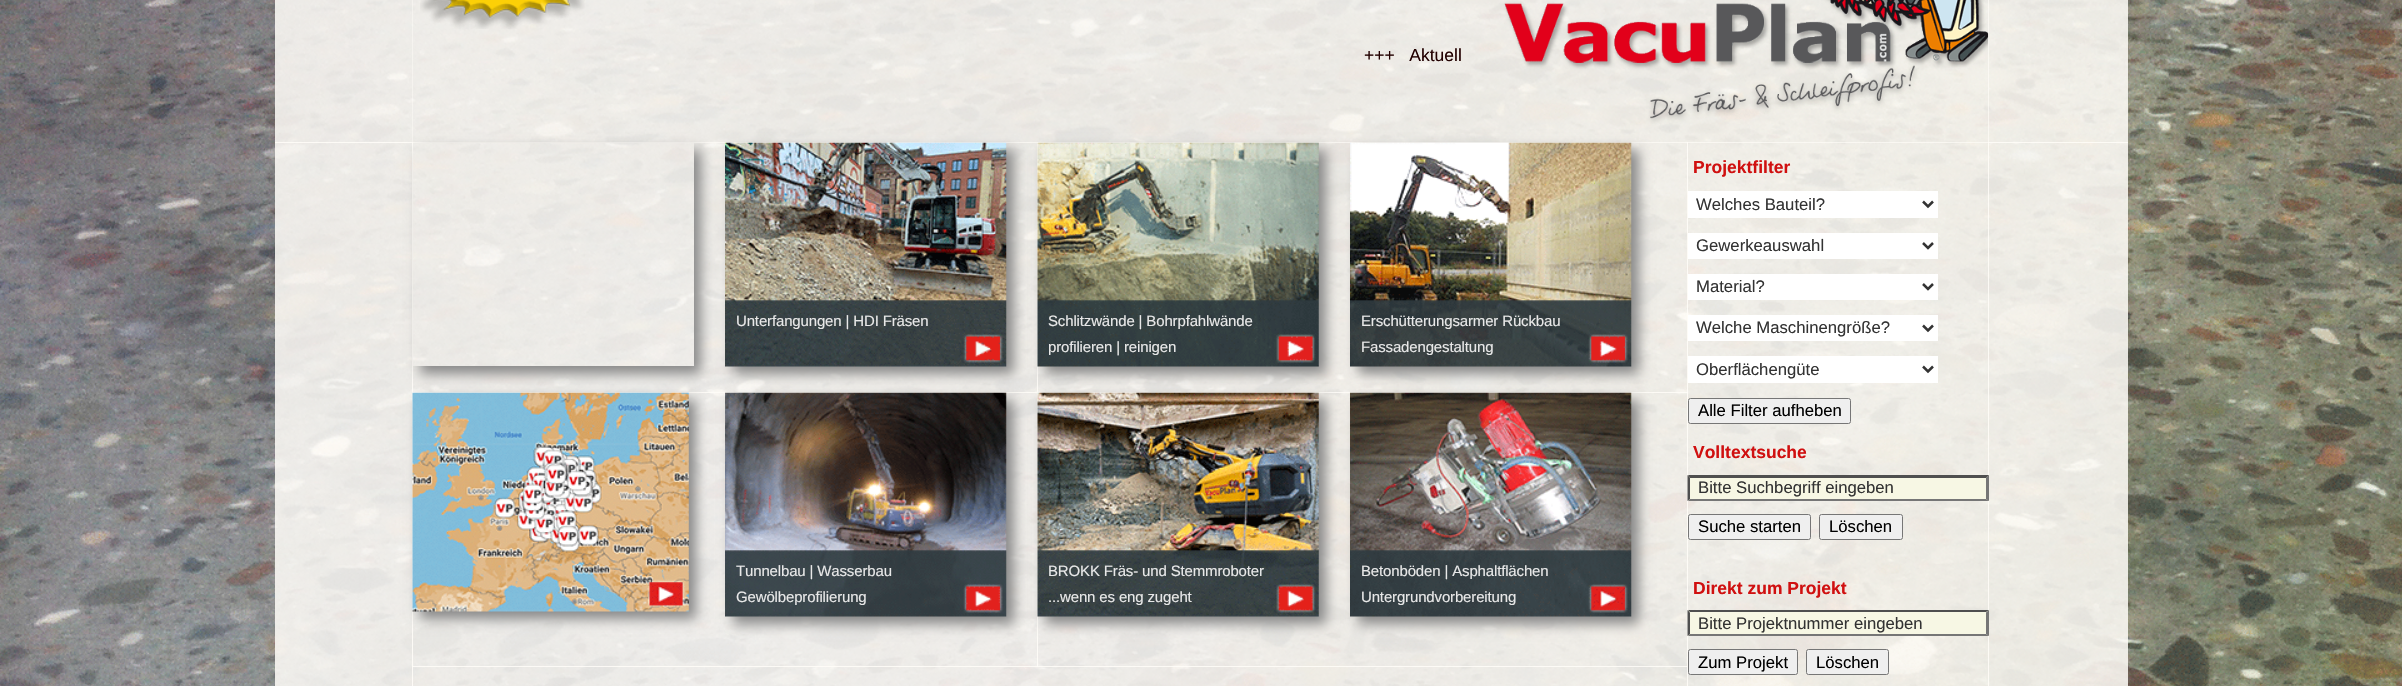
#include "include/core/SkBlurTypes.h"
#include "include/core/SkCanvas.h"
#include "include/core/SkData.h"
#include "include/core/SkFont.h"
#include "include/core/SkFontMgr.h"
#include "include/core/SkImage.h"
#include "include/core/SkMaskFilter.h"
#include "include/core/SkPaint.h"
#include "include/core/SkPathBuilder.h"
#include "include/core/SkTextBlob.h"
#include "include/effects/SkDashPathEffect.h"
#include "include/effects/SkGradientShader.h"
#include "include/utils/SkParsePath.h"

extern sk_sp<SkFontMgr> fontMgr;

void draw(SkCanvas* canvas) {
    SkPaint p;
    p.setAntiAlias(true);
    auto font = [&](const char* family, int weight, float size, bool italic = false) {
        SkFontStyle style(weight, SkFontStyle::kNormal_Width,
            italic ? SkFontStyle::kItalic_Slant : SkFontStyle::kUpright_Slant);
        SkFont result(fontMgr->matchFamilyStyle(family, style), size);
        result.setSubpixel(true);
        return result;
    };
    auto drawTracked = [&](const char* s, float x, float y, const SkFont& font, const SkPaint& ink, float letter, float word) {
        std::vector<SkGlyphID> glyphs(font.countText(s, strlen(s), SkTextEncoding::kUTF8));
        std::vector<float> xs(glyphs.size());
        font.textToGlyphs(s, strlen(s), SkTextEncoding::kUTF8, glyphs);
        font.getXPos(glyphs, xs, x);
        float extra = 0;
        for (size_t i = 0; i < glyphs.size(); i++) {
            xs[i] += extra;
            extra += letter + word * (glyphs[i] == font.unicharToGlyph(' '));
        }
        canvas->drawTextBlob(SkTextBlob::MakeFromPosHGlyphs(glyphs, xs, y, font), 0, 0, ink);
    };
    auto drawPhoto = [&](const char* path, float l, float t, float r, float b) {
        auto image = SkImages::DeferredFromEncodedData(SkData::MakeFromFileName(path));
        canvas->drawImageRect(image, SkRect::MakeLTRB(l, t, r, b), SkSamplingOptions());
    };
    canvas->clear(0xFFFFFFFF);
    drawPhoto("media/1.png", 0, 0, 2402, 686);
    p.setColor(0xD9FFFDF8);
    canvas->drawRect(SkRect::MakeLTRB(275, 0, 413, 143), p);
    drawPhoto("media/2.png", 412, 0, 1989, 143);
    drawPhoto("media/3.png", 420, 0, 585, 29);
    auto font1 = font("Liberation Sans", 400, 17.5f);
    p.setColor(0xFF220000);
    canvas->drawString("+++   Aktuell", 1364, 61, font1, p);
    {
        const struct { float l, t, r, b; SkColor color; } items[] = {
            {1988, 0, 2128, 143, 0xD9FFFDF8},
            {275, 142, 413, 686, 0xD9FFFDF8},
            {412, 142, 725, 393, 0xD9FFFDF8},
            {412, 392, 725, 667, 0xD9FFFDF8},
        };
        for (auto [l, t, r, b, color] : items) {
            p.setColor(color);
            canvas->drawRect(SkRect::MakeLTRB(l, t, r, b), p);
        }
    }
    canvas->save();
    canvas->clipPath(SkPathBuilder(SkPathFillType::kEvenOdd).moveTo(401, 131).lineTo(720, 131).lineTo(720, 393).lineTo(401, 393).close().moveTo(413, 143).lineTo(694, 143).lineTo(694, 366).lineTo(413, 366).close().detach(), true);
    p.setColor(0xFF888888);
    p.setMaskFilter(SkMaskFilter::MakeBlur(kNormal_SkBlurStyle, 6));
    canvas->drawRect(SkRect::MakeLTRB(420, 150, 701, 374), p);
    p.setMaskFilter(nullptr);
    canvas->restore();
    {
        const struct { float l, t, r, b; SkColor color; } items[] = {
            {725, 142, 1038, 393, 0xD9FFFDF8},
            {1037, 142, 1350, 393, 0xD9FFFDF8},
            {725, 392, 1038, 667, 0xD9FFFDF8},
        };
        for (auto [l, t, r, b, color] : items) {
            p.setColor(color);
            canvas->drawRect(SkRect::MakeLTRB(l, t, r, b), p);
        }
    }
    p.setColor(0xFF888888);
    p.setMaskFilter(SkMaskFilter::MakeBlur(kNormal_SkBlurStyle, 6));
    canvas->drawRect(SkRect::MakeLTRB(733, 150, 1014, 374), p);
    p.setMaskFilter(nullptr);
    drawPhoto("media/4.png", 725, 142, 1007, 367);
    auto font2 = font("Liberation Sans", 400, 15);
    p.setColor(0xFFE8E8E8);
    drawTracked("Unterfangungen | HDI Fräsen", 736, 326, font2, p, -0.15f, 0);
    p.setColor(0xD9FFFDF8);
    canvas->drawRect(SkRect::MakeLTRB(1037, 392, 1350, 667), p);
    p.setColor(0xFF888888);
    p.setMaskFilter(SkMaskFilter::MakeBlur(kNormal_SkBlurStyle, 6));
    canvas->drawRect(SkRect::MakeLTRB(1045, 150, 1326, 374), p);
    p.setMaskFilter(nullptr);
    drawPhoto("media/5.png", 1037, 142, 1319, 367);
    p.setColor(0xFFE8E8E8);
    drawTracked("Schlitzwände | Bohrpfahlwände", 1048, 326, font2, p, -0.15f, 0);
    drawTracked("profilieren | reinigen", 1048, 352, font2, p, -0.15f, 0);
    {
        const struct { float l, t, r, b; SkColor color; } items[] = {
            {1350, 142, 1688, 393, 0xD9FFFDF8},
            {1687, 142, 1989, 686, 0xD9FFFDF8},
            {1350, 392, 1688, 667, 0xD9FFFDF8},
        };
        for (auto [l, t, r, b, color] : items) {
            p.setColor(color);
            canvas->drawRect(SkRect::MakeLTRB(l, t, r, b), p);
        }
    }
    p.setColor(0xFF888888);
    p.setMaskFilter(SkMaskFilter::MakeBlur(kNormal_SkBlurStyle, 6));
    canvas->drawRect(SkRect::MakeLTRB(1358, 150, 1639, 374), p);
    p.setMaskFilter(nullptr);
    drawPhoto("media/6.png", 1350, 142, 1632, 367);
    p.setColor(0xFFE8E8E8);
    drawTracked("Erschütterungsarmer Rückbau", 1361, 326, font2, p, -0.15f, 0);
    drawTracked("Fassadengestaltung", 1361, 352, font2, p, -0.15f, 0);
    auto font3 = font("Liberation Sans", 700, 17.5f);
    p.setColor(0xFFD01010);
    canvas->drawString("Projektfilter", 1693, 173, font3, p);
    p.setColor(0xFFFFFFFF);
    canvas->drawRect(SkRect::MakeLTRB(1688, 191, 1938, 218), p);
    p.setStyle(SkPaint::kStroke_Style);
    p.setStrokeWidth(2.5f);
    p.setColor(0xFF333333);
    canvas->drawPath(SkPathBuilder().moveTo(1923, 201.5f).lineTo(1928, 206.5f).lineTo(1933, 201.5f).detach(), p);
    auto font4 = font("Liberation Sans", 400, 16.7f);
    p.setStyle(SkPaint::kFill_Style);
    canvas->drawString("Welches Bauteil?", 1696, 210, font4, p);
    p.setColor(0xFFFFFFFF);
    canvas->drawRect(SkRect::MakeLTRB(1688, 233, 1938, 259), p);
    p.setStyle(SkPaint::kStroke_Style);
    p.setColor(0xFF333333);
    canvas->drawPath(SkPathBuilder().moveTo(1923, 243).lineTo(1928, 248).lineTo(1933, 243).detach(), p);
    p.setStyle(SkPaint::kFill_Style);
    canvas->drawString("Gewerkeauswahl", 1696, 251, font4, p);
    p.setColor(0xFFFFFFFF);
    canvas->drawRect(SkRect::MakeLTRB(1688, 274, 1938, 300), p);
    p.setStyle(SkPaint::kStroke_Style);
    p.setColor(0xFF333333);
    canvas->drawPath(SkPathBuilder().moveTo(1923, 284).lineTo(1928, 289).lineTo(1933, 284).detach(), p);
    p.setStyle(SkPaint::kFill_Style);
    canvas->drawString("Material?", 1696, 292, font4, p);
    p.setColor(0xFFFFFFFF);
    canvas->drawRect(SkRect::MakeLTRB(1688, 315, 1938, 341), p);
    p.setStyle(SkPaint::kStroke_Style);
    p.setColor(0xFF333333);
    canvas->drawPath(SkPathBuilder().moveTo(1923, 325.5f).lineTo(1928, 330.5f).lineTo(1933, 325.5f).detach(), p);
    p.setStyle(SkPaint::kFill_Style);
    canvas->drawString("Welche Maschinengröße?", 1696, 333, font4, p);
    p.setColor(0xFFFFFFFF);
    canvas->drawRect(SkRect::MakeLTRB(1688, 356, 1938, 383), p);
    p.setStyle(SkPaint::kStroke_Style);
    p.setColor(0xFF333333);
    canvas->drawPath(SkPathBuilder().moveTo(1923, 366.5f).lineTo(1928, 371.5f).lineTo(1933, 366.5f).detach(), p);
    p.setStyle(SkPaint::kFill_Style);
    canvas->drawString("Oberflächengüte", 1696, 375, font4, p);
    p.setColor(0xFFEFEFEF);
    canvas->drawRoundRect(SkRect::MakeLTRB(1688.5f, 398.5f, 1850.5f, 423.5f), 2, 2, p);
    p.setStyle(SkPaint::kStroke_Style);
    p.setStrokeWidth(1);
    p.setColor(0xFF767676);
    canvas->drawRoundRect(SkRect::MakeLTRB(1688.5f, 398.5f, 1850.5f, 423.5f), 2, 2, p);
    p.setStyle(SkPaint::kFill_Style);
    p.setColor(0xFF000000);
    canvas->drawString("Alle Filter aufheben", 1698, 416, font4, p);
    p.setColor(0xFFD01010);
    canvas->drawString("Volltextsuche", 1693, 458, font3, p);
    p.setColor(0xD9FFFDF8);
    canvas->drawRect(SkRect::MakeLTRB(1988, 142, 2128, 686), p);
    p.setColor(0xFFF7F7E4);
    canvas->drawRect(SkRect::MakeLTRB(1688, 475, 1989, 501), p);
    p.setColor(0xFF4F4F4F);
    canvas->drawPath(SkPathBuilder().moveTo(1688, 475).lineTo(1989, 475).lineTo(1986, 478).lineTo(1690, 478).close().detach(), p);
    p.setColor(0xFF767676);
    canvas->drawPath(SkPathBuilder().moveTo(1989, 475).lineTo(1989, 501).lineTo(1986, 499).lineTo(1986, 477.5f).close().detach(), p);
    canvas->drawPath(SkPathBuilder().moveTo(1989, 501).lineTo(1688, 501).lineTo(1690, 499).lineTo(1986, 499).close().detach(), p);
    p.setColor(0xFF4F4F4F);
    canvas->drawPath(SkPathBuilder().moveTo(1687.5f, 501).lineTo(1687.5f, 475).lineTo(1690, 477.5f).lineTo(1690, 499).close().detach(), p);
    p.setColor(0xFF333333);
    canvas->drawString("Bitte Suchbegriff eingeben", 1698, 493, font4, p);
    p.setColor(0xFFEFEFEF);
    canvas->drawRoundRect(SkRect::MakeLTRB(1688.5f, 514.5f, 1810.5f, 539.5f), 2, 2, p);
    p.setStyle(SkPaint::kStroke_Style);
    p.setColor(0xFF767676);
    canvas->drawRoundRect(SkRect::MakeLTRB(1688.5f, 514.5f, 1810.5f, 539.5f), 2, 2, p);
    p.setStyle(SkPaint::kFill_Style);
    p.setColor(0xFF000000);
    canvas->drawString("Suche starten", 1698, 532, font4, p);
    p.setColor(0xFFEFEFEF);
    canvas->drawRoundRect(SkRect::MakeLTRB(1819.5f, 514.5f, 1902.5f, 539.5f), 2, 2, p);
    p.setStyle(SkPaint::kStroke_Style);
    p.setColor(0xFF767676);
    canvas->drawRoundRect(SkRect::MakeLTRB(1819.5f, 514.5f, 1902.5f, 539.5f), 2, 2, p);
    p.setStyle(SkPaint::kFill_Style);
    p.setColor(0xFF000000);
    canvas->drawString("Löschen", 1829, 532, font4, p);
    p.setColor(0xFFD01010);
    canvas->drawString("Direkt zum Projekt", 1693, 594, font3, p);
    p.setColor(0xFFF7F7E4);
    canvas->drawRect(SkRect::MakeLTRB(1688, 610, 1989, 636), p);
    p.setColor(0xFF4F4F4F);
    canvas->drawPath(SkPathBuilder().moveTo(1688, 610).lineTo(1989, 610).lineTo(1986, 612).lineTo(1690, 612).close().detach(), p);
    p.setColor(0xFF767676);
    canvas->drawPath(SkPathBuilder().moveTo(1989, 610).lineTo(1989, 636).lineTo(1986, 634).lineTo(1986, 612.5f).close().detach(), p);
    canvas->drawPath(SkPathBuilder().moveTo(1989, 636).lineTo(1688, 636).lineTo(1690, 634).lineTo(1986, 634).close().detach(), p);
    p.setColor(0xFF4F4F4F);
    canvas->drawPath(SkPathBuilder().moveTo(1687.5f, 636).lineTo(1687.5f, 610).lineTo(1690, 612.5f).lineTo(1690, 634).close().detach(), p);
    p.setColor(0xFF333333);
    canvas->drawString("Bitte Projektnummer eingeben", 1698, 629, font4, p);
    p.setColor(0xFFEFEFEF);
    canvas->drawRoundRect(SkRect::MakeLTRB(1688.5f, 649.5f, 1797.5f, 674.5f), 2, 2, p);
    p.setStyle(SkPaint::kStroke_Style);
    p.setColor(0xFF767676);
    canvas->drawRoundRect(SkRect::MakeLTRB(1688.5f, 649.5f, 1797.5f, 674.5f), 2, 2, p);
    p.setStyle(SkPaint::kFill_Style);
    p.setColor(0xFF000000);
    canvas->drawString("Zum Projekt", 1698, 668, font4, p);
    p.setColor(0xFFEFEFEF);
    canvas->drawRoundRect(SkRect::MakeLTRB(1806.5f, 649.5f, 1888.5f, 674.5f), 2, 2, p);
    p.setStyle(SkPaint::kStroke_Style);
    p.setColor(0xFF767676);
    canvas->drawRoundRect(SkRect::MakeLTRB(1806.5f, 649.5f, 1888.5f, 674.5f), 2, 2, p);
    p.setStyle(SkPaint::kFill_Style);
    p.setColor(0xFF000000);
    canvas->drawString("Löschen", 1816, 668, font4, p);
    p.setColor(0xFF888888);
    p.setMaskFilter(SkMaskFilter::MakeBlur(kNormal_SkBlurStyle, 6));
    canvas->drawRect(SkRect::MakeLTRB(420, 400, 696, 619), p);
    p.setMaskFilter(nullptr);
    drawPhoto("media/7.png", 412, 392, 689, 612);
    p.setMaskFilter(SkMaskFilter::MakeBlur(kNormal_SkBlurStyle, 6));
    canvas->drawRect(SkRect::MakeLTRB(733, 400, 1014, 624), p);
    p.setMaskFilter(nullptr);
    drawPhoto("media/8.png", 725, 392, 1007, 617);
    p.setColor(0xFFE8E8E8);
    drawTracked("Tunnelbau | Wasserbau", 736, 576, font2, p, -0.15f, 0);
    drawTracked("Gewölbeprofilierung", 736, 602, font2, p, -0.15f, 0);
    p.setColor(0xFF888888);
    p.setMaskFilter(SkMaskFilter::MakeBlur(kNormal_SkBlurStyle, 6));
    canvas->drawRect(SkRect::MakeLTRB(1045, 400, 1326, 624), p);
    p.setMaskFilter(nullptr);
    drawPhoto("media/9.png", 1037, 392, 1319, 617);
    p.setColor(0xFFE8E8E8);
    drawTracked("BROKK Fräs- und Stemmroboter", 1048, 576, font2, p, -0.15f, 0);
    drawTracked("...wenn es eng zugeht", 1048, 602, font2, p, -0.15f, 0);
    p.setColor(0xFF888888);
    p.setMaskFilter(SkMaskFilter::MakeBlur(kNormal_SkBlurStyle, 6));
    canvas->drawRect(SkRect::MakeLTRB(1358, 400, 1639, 624), p);
    p.setMaskFilter(nullptr);
    drawPhoto("media/10.png", 1350, 392, 1632, 617);
    p.setColor(0xFFE8E8E8);
    drawTracked("Betonböden | Asphaltflächen", 1361, 576, font2, p, -0.15f, 0);
    drawTracked("Untergrundvorbereitung", 1361, 602, font2, p, -0.15f, 0);
    p.setColor(0xD9FFFDF8);
    canvas->drawRect(SkRect::MakeLTRB(412, 666, 1688, 686), p);
}
